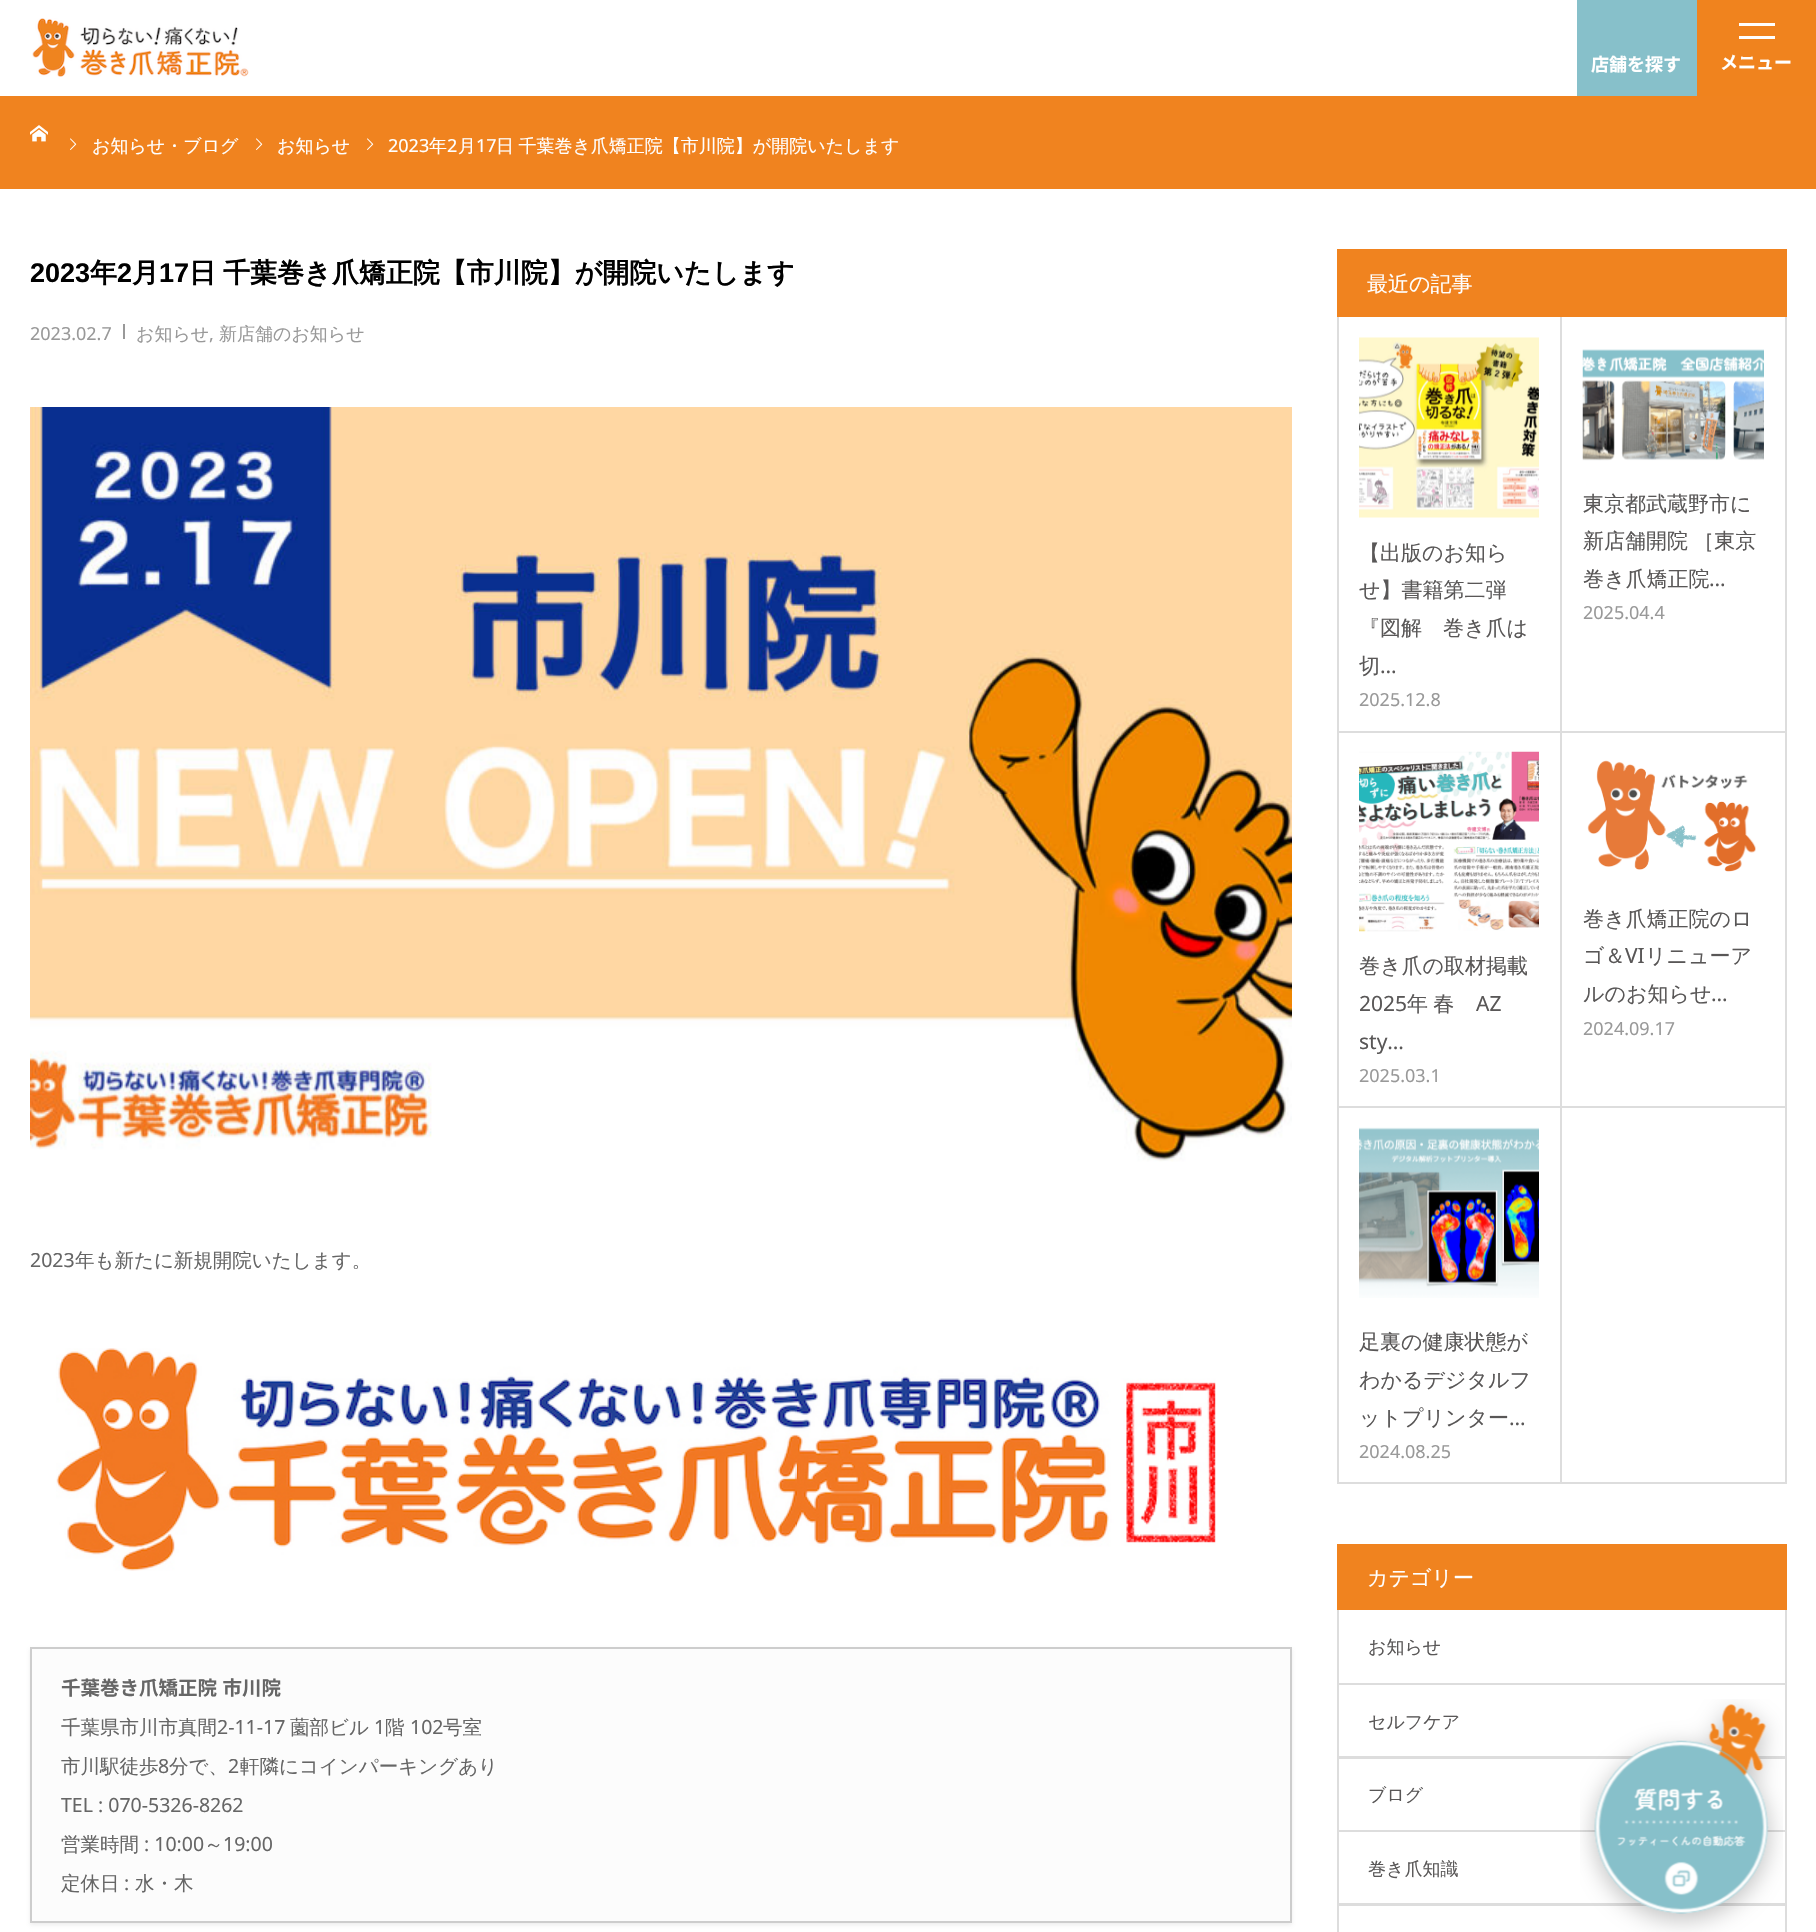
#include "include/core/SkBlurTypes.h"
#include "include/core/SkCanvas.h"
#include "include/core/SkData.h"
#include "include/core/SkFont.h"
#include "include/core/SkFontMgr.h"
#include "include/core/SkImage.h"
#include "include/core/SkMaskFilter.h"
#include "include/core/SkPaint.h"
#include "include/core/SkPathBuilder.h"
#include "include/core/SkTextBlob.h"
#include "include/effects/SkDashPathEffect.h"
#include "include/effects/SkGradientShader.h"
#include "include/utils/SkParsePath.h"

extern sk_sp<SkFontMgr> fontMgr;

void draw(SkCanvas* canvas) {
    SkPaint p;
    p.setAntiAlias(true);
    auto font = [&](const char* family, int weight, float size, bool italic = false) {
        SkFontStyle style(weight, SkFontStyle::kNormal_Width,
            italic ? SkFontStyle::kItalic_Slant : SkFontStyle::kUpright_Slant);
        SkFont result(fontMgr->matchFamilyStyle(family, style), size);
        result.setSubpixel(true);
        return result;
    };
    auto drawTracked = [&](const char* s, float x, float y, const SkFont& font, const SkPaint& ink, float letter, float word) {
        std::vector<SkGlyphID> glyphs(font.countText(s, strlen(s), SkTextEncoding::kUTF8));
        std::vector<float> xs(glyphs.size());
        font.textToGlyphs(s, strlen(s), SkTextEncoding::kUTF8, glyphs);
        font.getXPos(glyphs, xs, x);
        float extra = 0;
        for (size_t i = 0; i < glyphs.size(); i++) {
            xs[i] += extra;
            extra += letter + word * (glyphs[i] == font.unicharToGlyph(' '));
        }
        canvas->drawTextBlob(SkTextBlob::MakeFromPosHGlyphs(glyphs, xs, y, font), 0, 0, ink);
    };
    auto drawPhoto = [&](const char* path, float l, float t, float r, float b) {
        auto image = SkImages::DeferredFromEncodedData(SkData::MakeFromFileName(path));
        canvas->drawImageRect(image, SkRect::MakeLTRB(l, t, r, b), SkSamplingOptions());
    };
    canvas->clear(0xFFFFFFFF);
    drawPhoto("media/1.png", 32, 18, 249, 77);
    p.setColor(0xFF87C0CA);
    canvas->drawRect(SkRect::MakeLTRB(1577, 0, 1697, 96), p);
    auto font1 = font("Noto Sans JP", 700, 18);
    p.setColor(0xFFFFFFFF);
    canvas->drawString("店舗を探す", 1591, 71, font1, p);
    {
        const struct { float l, t, r, b; SkColor color; } items[] = {
            {1697, 0, 1816, 96, 0xFFF0831E},
            {1739, 23, 1775, 26, 0xFFFFFFFF},
            {1739, 36, 1775, 39, 0xFFFFFFFF},
        };
        for (auto [l, t, r, b, color] : items) {
            p.setColor(color);
            canvas->drawRect(SkRect::MakeLTRB(l, t, r, b), p);
        }
    }
    canvas->drawString("メニュー", 1720, 69, font1, p);
    p.setColor(0xFFF0831F);
    canvas->drawRect(SkRect::MakeLTRB(0, 96, 1816, 189), p);
    drawPhoto("media/2.png", 30, 125, 48, 142);
    drawPhoto("media/3.png", 70, 138, 77, 150);
    auto font2 = font("WenQuanYi Zen Hei", 500, 18);
    p.setColor(0xFFFFFFFF);
    canvas->drawString("お知らせ・ブログ", 92, 152, font2, p);
    drawPhoto("media/3.png", 256, 138, 263, 150);
    canvas->drawString("お知らせ", 277, 152, font2, p);
    drawPhoto("media/3.png", 367, 138, 374, 150);
    auto font3 = font("Noto Sans", 400, 18);
    canvas->drawString("2023", 388, 152, font3, p);
    canvas->drawString("年", 429, 152, font2, p);
    canvas->drawString("2", 447, 152, font3, p);
    canvas->drawString("月", 458, 152, font2, p);
    canvas->drawString("17", 476, 152, font3, p);
    drawTracked("日 千葉巻き爪矯正院【市川院】が開院いたします", 496, 152, font2, p, 0, -1);
    auto font4 = font("Liberation Sans", 700, 27);
    p.setColor(0xFF000000);
    canvas->drawString("2023", 30, 282, font4, p);
    auto font5 = font("WenQuanYi Zen Hei", 700, 27);
    canvas->drawString("年", 90, 282, font5, p);
    canvas->drawString("2", 117, 282, font4, p);
    canvas->drawString("月", 132, 282, font5, p);
    canvas->drawString("17", 159, 282, font4, p);
    drawTracked("日 千葉巻き爪矯正院【市川院】が開院いたします", 189, 282, font5, p, 0, -1);
    p.setColor(0xFF999999);
    canvas->drawString("2023.02.7", 30, 340, font3, p);
    canvas->drawRect(SkRect::MakeLTRB(123, 324, 125, 339), p);
    canvas->drawString("お知らせ", 136, 340, font2, p);
    canvas->drawString(",", 209, 340, font3, p);
    canvas->drawString("新店舗のお知らせ", 219, 340, font2, p);
    drawPhoto("media/4.png", 30, 407, 1292, 1162);
    auto font6 = font("Noto Sans", 400, 19.5f);
    p.setColor(0xFF666666);
    canvas->drawString("2023", 30, 1267, font6, p);
    auto font7 = font("WenQuanYi Zen Hei", 500, 19.5f);
    canvas->drawString("年も新たに新規開院いたします。", 75, 1267, font7, p);
    drawPhoto("media/5.png", 56, 1348, 1216, 1571);
    p.setColor(0x4DC3C3C3);
    p.setMaskFilter(SkMaskFilter::MakeBlur(kNormal_SkBlurStyle, 2));
    canvas->drawRect(SkRect::MakeLTRB(30, 1649, 1292, 1925), p);
    p.setMaskFilter(nullptr);
    p.setColor(0xFFFCFCFC);
    canvas->drawRect(SkRect::MakeLTRB(31, 1648, 1291, 1922), p);
    p.setStyle(SkPaint::kStroke_Style);
    p.setStrokeWidth(2);
    p.setColor(0xFFCDCDCD);
    canvas->drawRect(SkRect::MakeLTRB(31, 1648, 1291, 1922), p);
    auto font8 = font("Noto Sans JP", 700, 19.5f);
    p.setStyle(SkPaint::kFill_Style);
    p.setColor(0xFF666666);
    drawTracked("千葉巻き爪矯正院 市川院", 61, 1695, font8, p, 0, 1);
    canvas->drawString("千葉県市川市真間", 61, 1734, font7, p);
    canvas->drawString("2-11-17", 217, 1734, font6, p);
    canvas->drawString("薗部ビル", 290, 1734, font7, p);
    canvas->drawString("1", 374, 1734, font6, p);
    canvas->drawString("階", 385, 1734, font7, p);
    canvas->drawString("102", 410, 1734, font6, p);
    canvas->drawString("号室", 443, 1734, font7, p);
    canvas->drawString("市川駅徒歩", 61, 1773, font7, p);
    canvas->drawString("8", 158, 1773, font6, p);
    canvas->drawString("分で、", 169, 1773, font7, p);
    canvas->drawString("2", 228, 1773, font6, p);
    canvas->drawString("軒隣にコインパーキングあり", 240, 1773, font7, p);
    canvas->drawString("TEL : 070-5326-8262", 61, 1812, font6, p);
    canvas->drawString("営業時間", 61, 1851, font7, p);
    canvas->drawString(": 10:00", 144, 1851, font6, p);
    canvas->drawString("～", 204, 1851, font7, p);
    canvas->drawString("19:00", 223, 1851, font6, p);
    canvas->drawString("定休日", 61, 1890, font7, p);
    canvas->drawString(":", 124, 1890, font6, p);
    canvas->drawString("水・木", 135, 1890, font7, p);
    p.setColor(0xFFF0831F);
    canvas->drawRect(SkRect::MakeLTRB(1337, 249, 1787, 317), p);
    auto font9 = font("WenQuanYi Zen Hei", 500, 21);
    p.setColor(0xFFFFFFFF);
    canvas->drawString("最近の記事", 1367, 291, font9, p);
    {
        const struct { float l, t, r, b; SkColor color; } items[] = {
            {1785, 317, 1787, 1484, 0xFFDDDDDD},
            {1337, 1482, 1787, 1484, 0xFFDDDDDD},
            {1337, 317, 1339, 1484, 0xFFDDDDDD},
            {1560, 317, 1562, 732, 0xFFDDDDDD},
            {1338, 731, 1785, 733, 0xFFDDDDDD},
        };
        for (auto [l, t, r, b, color] : items) {
            p.setColor(color);
            canvas->drawRect(SkRect::MakeLTRB(l, t, r, b), p);
        }
    }
    drawPhoto("media/6.png", 1359, 337, 1539, 518);
    p.setColor(0xFF595757);
    {
        const struct { const char* s; float x, y; } items[] = {
            {"【出版のお知ら", 1359, 560},
            {"せ】書籍第二弾", 1359, 597},
            {"『図解　巻き爪は", 1359, 635},
            {"切", 1359, 673},
        };
        for (auto [s, x, y] : items) {
            canvas->drawString(s, x, y, font9, p);
        }
    }
    auto font10 = font("Noto Sans", 400, 21);
    canvas->drawString("…", 1380, 673, font10, p);
    p.setColor(0xFF999999);
    canvas->drawString("2025.12.8", 1359, 706, font3, p);
    drawPhoto("media/7.png", 1582, 349, 1764, 461);
    p.setColor(0xFF595757);
    canvas->drawString("東京都武蔵野市に", 1583, 511, font9, p);
    drawTracked("新店舗開院 ［東京", 1583, 548, font9, p, 0, -1);
    canvas->drawString("巻き爪矯正院", 1583, 586, font9, p);
    canvas->drawString("…", 1709, 586, font10, p);
    p.setColor(0xFF999999);
    canvas->drawString("2025.04.4", 1583, 619, font3, p);
    p.setColor(0xFFDDDDDD);
    canvas->drawRect(SkRect::MakeLTRB(1560, 731, 1562, 1107), p);
    canvas->drawRect(SkRect::MakeLTRB(1338, 1106, 1785, 1108), p);
    drawPhoto("media/8.png", 1359, 751, 1539, 932);
    p.setColor(0xFF595757);
    canvas->drawString("巻き爪の取材掲載", 1359, 973, font9, p);
    canvas->drawString("2025", 1359, 1011, font10, p);
    drawTracked("年 春", 1407, 1011, font9, p, 0, -1);
    canvas->drawString("AZ", 1476, 1011, font10, p);
    canvas->drawString("sty…", 1359, 1049, font10, p);
    p.setColor(0xFF999999);
    canvas->drawString("2025.03.1", 1359, 1082, font3, p);
    drawPhoto("media/9.png", 1587, 760, 1756, 872);
    p.setColor(0xFF595757);
    canvas->drawString("巻き爪矯正院のロ", 1583, 926, font9, p);
    canvas->drawString("ゴ＆", 1583, 963, font9, p);
    canvas->drawString("VI", 1625, 963, font10, p);
    canvas->drawString("リニューア", 1645, 963, font9, p);
    canvas->drawString("ルのお知らせ", 1583, 1001, font9, p);
    canvas->drawString("…", 1711, 1001, font10, p);
    p.setColor(0xFF999999);
    canvas->drawString("2024.09.17", 1583, 1035, font3, p);
    p.setColor(0xFFDDDDDD);
    canvas->drawRect(SkRect::MakeLTRB(1560, 1106, 1562, 1482), p);
    drawPhoto("media/10.png", 1359, 1127, 1539, 1298);
    p.setColor(0xFF595757);
    {
        const struct { const char* s; float x, y; } items[] = {
            {"足裏の健康状態が", 1359, 1349},
            {"わかるデジタルフ", 1359, 1387},
            {"ットプリンター", 1359, 1425},
        };
        for (auto [s, x, y] : items) {
            canvas->drawString(s, x, y, font9, p);
        }
    }
    canvas->drawString("…", 1509, 1425, font10, p);
    p.setColor(0xFF999999);
    canvas->drawString("2024.08.25", 1359, 1458, font3, p);
    p.setColor(0xFFF0831F);
    canvas->drawRect(SkRect::MakeLTRB(1337, 1544, 1787, 1610), p);
    p.setColor(0xFFFFFFFF);
    canvas->drawString("カテゴリー", 1367, 1585, font9, p);
    p.setColor(0xFFDDDDDD);
    canvas->drawRect(SkRect::MakeLTRB(1785, 1610, 1787, 1685), p);
    canvas->drawRect(SkRect::MakeLTRB(1337, 1610, 1339, 1685), p);
    p.setColor(0xFF595757);
    canvas->drawString("お知らせ", 1368, 1653, font2, p);
    p.setStyle(SkPaint::kStroke_Style);
    p.setColor(0xFFDDDDDD);
    canvas->drawRect(SkRect::MakeLTRB(1338, 1684, 1786, 1757), p);
    p.setStyle(SkPaint::kFill_Style);
    p.setColor(0xFF595757);
    canvas->drawString("セルフケア", 1368, 1728, font2, p);
    p.setStyle(SkPaint::kStroke_Style);
    p.setColor(0xFFDDDDDD);
    canvas->drawRect(SkRect::MakeLTRB(1338, 1758, 1786, 1831), p);
    p.setStyle(SkPaint::kFill_Style);
    p.setColor(0xFF595757);
    canvas->drawString("ブログ", 1368, 1801, font2, p);
    p.setStyle(SkPaint::kStroke_Style);
    p.setColor(0xFFDDDDDD);
    canvas->drawRect(SkRect::MakeLTRB(1338, 1831, 1786, 1904), p);
    p.setStyle(SkPaint::kFill_Style);
    p.setColor(0xFF595757);
    canvas->drawString("巻き爪知識", 1368, 1875, font2, p);
    p.setStyle(SkPaint::kStroke_Style);
    p.setColor(0xFFDDDDDD);
    canvas->drawRect(SkRect::MakeLTRB(1338, 1905, 1786, 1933), p);
    drawPhoto("media/11.png", 1580, 1699, 1783, 1932);
}
